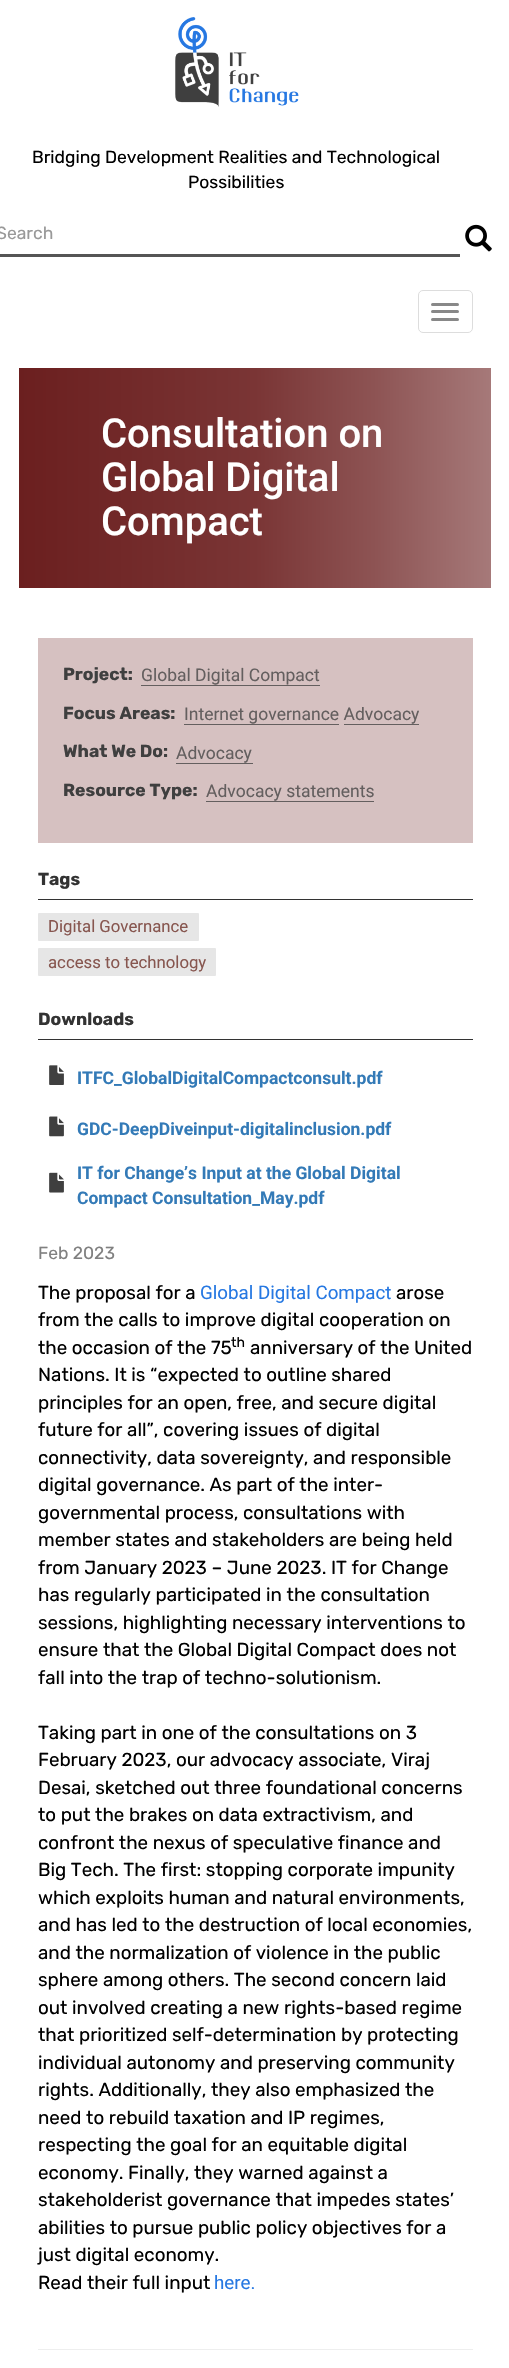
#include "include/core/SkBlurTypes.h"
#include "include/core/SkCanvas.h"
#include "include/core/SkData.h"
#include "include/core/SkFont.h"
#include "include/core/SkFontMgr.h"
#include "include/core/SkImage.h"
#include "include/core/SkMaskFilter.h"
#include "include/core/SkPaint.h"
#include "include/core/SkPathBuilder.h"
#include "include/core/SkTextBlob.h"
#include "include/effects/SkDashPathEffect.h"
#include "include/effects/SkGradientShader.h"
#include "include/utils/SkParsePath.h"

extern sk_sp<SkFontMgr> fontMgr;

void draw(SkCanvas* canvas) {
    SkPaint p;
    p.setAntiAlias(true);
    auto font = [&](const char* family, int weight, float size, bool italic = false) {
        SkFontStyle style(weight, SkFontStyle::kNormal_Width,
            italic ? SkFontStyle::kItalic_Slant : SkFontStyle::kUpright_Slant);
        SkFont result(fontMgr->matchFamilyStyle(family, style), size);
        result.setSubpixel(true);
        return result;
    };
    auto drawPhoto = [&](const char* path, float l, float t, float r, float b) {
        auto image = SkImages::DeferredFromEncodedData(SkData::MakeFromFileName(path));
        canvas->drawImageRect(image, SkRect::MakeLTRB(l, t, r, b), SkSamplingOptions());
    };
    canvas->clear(0xFFFFFFFF);
    drawPhoto("media/1.png", 175, 17, 299, 107);
    auto font1 = font("Rubik", 400, 17.5f);
    p.setColor(0xFF000000);
    canvas->drawString("Bridging Development Realities and Technological", 32, 163, font1, p);
    canvas->drawString("Possibilities", 188, 188, font1, p);
    p.setColor(0xFF555555);
    canvas->drawRect(SkRect::MakeLTRB(0, 254, 460, 257), p);
    p.setColor(0xFF999999);
    canvas->drawString("Search", -4, 239, font1, p);
    drawPhoto("media/2.png", 465, 224, 492, 252);
    p.setStyle(SkPaint::kStroke_Style);
    p.setStrokeWidth(1);
    p.setColor(0xFFDDDDDD);
    canvas->drawRoundRect(SkRect::MakeLTRB(418.5f, 290.5f, 472.5f, 332.5f), 4.5f, 4.5f, p);
    p.setStyle(SkPaint::kFill_Style);
    p.setColor(0xFF888888);
    canvas->drawRoundRect(SkRect::MakeLTRB(431, 303, 459, 306), 1.5f, 1.5f, p);
    canvas->drawRoundRect(SkRect::MakeLTRB(431, 310, 459, 313), 1.5f, 1.5f, p);
    canvas->drawRoundRect(SkRect::MakeLTRB(431, 318, 459, 321), 1.5f, 1.5f, p);
    {
        const SkColor colors[] = {0xFF6B1F1F, 0xFF7A3535, 0xFF8D5353, 0xFFA67979};
        const float stops[] = {0, 0.5f, 0.75f, 1};
        const SkPoint ends[] = {{19, 478}, {491, 478}};
        p.setShader(SkGradientShader::MakeLinear(ends, colors, stops, 4, SkTileMode::kClamp));
        p.setAlpha(255);
    }
    canvas->drawRect(SkRect::MakeLTRB(19, 368, 491, 588), p);
    auto font2 = font("Roboto", 500, 40);
    p.setShader(nullptr);
    p.setColor(0xFFFFFFFF);
    {
        const struct { const char* s; float x, y; } items[] = {
            {"Consultation on", 101, 447},
            {"Global Digital", 101, 491},
            {"Compact", 101, 535},
        };
        for (auto [s, x, y] : items) {
            canvas->drawString(s, x, y, font2, p);
        }
    }
    p.setColor(0xFFD6C1C1);
    canvas->drawRect(SkRect::MakeLTRB(38, 638, 473, 843), p);
    auto font3 = font("Rubik", 700, 17.5f);
    p.setColor(0xFF3F3F3F);
    canvas->drawString("Project:", 63, 680, font3, p);
    auto font4 = font("Roboto", 400, 17.5f);
    p.setColor(0xFF645F5F);
    canvas->drawString("Global Digital Compact", 141, 681, font4, p);
    canvas->drawRect(SkRect::MakeLTRB(141, 685, 320, 686), p);
    p.setColor(0xFF3F3F3F);
    canvas->drawString("Focus Areas:", 63, 719, font3, p);
    p.setColor(0xFF645F5F);
    canvas->drawString("Internet governance Advocacy", 184, 720, font4, p);
    canvas->drawRect(SkRect::MakeLTRB(184, 724, 339, 725), p);
    canvas->drawRect(SkRect::MakeLTRB(344, 724, 419, 725), p);
    p.setColor(0xFF3F3F3F);
    canvas->drawString("What We Do:", 63, 757, font3, p);
    p.setColor(0xFF645F5F);
    canvas->drawString("Advocacy", 176, 759, font4, p);
    canvas->drawRect(SkRect::MakeLTRB(176, 763, 253, 764), p);
    p.setColor(0xFF3F3F3F);
    canvas->drawString("Resource Type:", 63, 796, font3, p);
    p.setColor(0xFF645F5F);
    canvas->drawString("Advocacy statements", 206, 797, font4, p);
    canvas->drawRect(SkRect::MakeLTRB(206, 801, 374, 802), p);
    p.setColor(0xFF333333);
    canvas->drawRect(SkRect::MakeLTRB(38, 899, 473, 900), p);
    canvas->drawString("Tags", 38, 885, font3, p);
    p.setColor(0xFFE6E6E6);
    canvas->drawRoundRect(SkRect::MakeLTRB(38, 913, 199, 941), 1, 1, p);
    auto font5 = font("Roboto", 400, 16.75f);
    p.setColor(0xFF87564F);
    canvas->drawString("Digital Governance", 48, 932, font5, p);
    p.setColor(0xFFE6E6E6);
    canvas->drawRoundRect(SkRect::MakeLTRB(38, 948, 216, 976), 1, 1, p);
    p.setColor(0xFF87564F);
    canvas->drawString("access to technology", 48, 968, font5, p);
    p.setColor(0xFF333333);
    canvas->drawRect(SkRect::MakeLTRB(38, 1039, 473, 1040), p);
    canvas->drawString("Downloads", 38, 1025, font3, p);
    drawPhoto("media/3.png", 49, 1065, 64, 1085);
    auto font6 = font("Roboto", 700, 17.5f);
    p.setColor(0xFF337AB7);
    canvas->drawString("ITFC_GlobalDigitalCompactconsult.pdf", 77, 1084, font6, p);
    drawPhoto("media/4.png", 49, 1116, 64, 1137);
    canvas->drawString("GDC-DeepDiveinput-digitalinclusion.pdf", 77, 1135, font6, p);
    drawPhoto("media/5.png", 49, 1172, 64, 1193);
    canvas->drawString("IT for Change’s Input at the Global Digital", 77, 1179, font6, p);
    canvas->drawString("Compact Consultation_May.pdf", 77, 1204, font6, p);
    p.setColor(0xFF808080);
    canvas->drawString("Feb 2023", 38, 1259, font1, p);
    auto font7 = font("Rubik", 400, 18.75f);
    p.setColor(0xFF000000);
    canvas->drawString("The proposal for a", 38, 1299, font7, p);
    auto font8 = font("Roboto", 400, 18.75f);
    p.setColor(0xFF2678E2);
    canvas->drawString("Global Digital Compact", 200, 1299, font8, p);
    p.setColor(0xFF000000);
    {
        const struct { const char* s; float x, y; } items[] = {
            {"arose", 396, 1299},
            {"from the calls to improve digital cooperation on", 38, 1326},
            {"the occasion of the 75", 38, 1354},
        };
        for (auto [s, x, y] : items) {
            canvas->drawString(s, x, y, font7, p);
        }
    }
    auto font9 = font("Rubik", 400, 14);
    canvas->drawString("th", 231, 1347, font9, p);
    {
        const struct { const char* s; float x, y; } items[] = {
            {"anniversary of the United", 250, 1354},
            {"Nations. It is “expected to outline shared", 38, 1381},
            {"principles for an open, free, and secure digital", 38, 1409},
            {"future for all”, covering issues of digital", 38, 1436},
            {"connectivity, data sovereignty, and responsible", 38, 1464},
            {"digital governance. As part of the inter-", 38, 1491},
            {"governmental process, consultations with", 38, 1519},
            {"member states and stakeholders are being held", 38, 1546},
            {"from January 2023 – June 2023. IT for Change", 38, 1574},
            {"has regularly participated in the consultation", 38, 1601},
            {"sessions, highlighting necessary interventions to", 38, 1629},
            {"ensure that the Global Digital Compact does not", 38, 1656},
            {"fall into the trap of techno-solutionism.", 38, 1684},
            {"Taking part in one of the consultations on 3", 38, 1739},
            {"February 2023, our advocacy associate, Viraj", 38, 1766},
            {"Desai, sketched out three foundational concerns", 38, 1794},
            {"to put the brakes on data extractivism, and", 38, 1821},
            {"confront the nexus of speculative finance and", 38, 1849},
            {"Big Tech. The first: stopping corporate impunity", 38, 1876},
            {"which exploits human and natural environments,", 38, 1904},
            {"and has led to the destruction of local economies,", 38, 1931},
            {"and the normalization of violence in the public", 38, 1959},
            {"sphere among others. The second concern laid", 38, 1986},
            {"out involved creating a new rights-based regime", 38, 2014},
            {"that prioritized self-determination by protecting", 38, 2041},
            {"individual autonomy and preserving community", 38, 2069},
            {"rights. Additionally, they also emphasized the", 38, 2096},
            {"need to rebuild taxation and IP regimes,", 38, 2124},
            {"respecting the goal for an equitable digital", 38, 2151},
            {"economy. Finally, they warned against a", 38, 2179},
            {"stakeholderist governance that impedes states’", 38, 2206},
            {"abilities to pursue public policy objectives for a", 38, 2234},
            {"just digital economy.", 38, 2261},
            {"Read their full input", 38, 2289},
        };
        for (auto [s, x, y] : items) {
            canvas->drawString(s, x, y, font7, p);
        }
    }
    p.setColor(0xFF2678E2);
    canvas->drawString("here.", 214, 2289, font8, p);
    p.setColor(0xFFEEEEEE);
    canvas->drawRect(SkRect::MakeLTRB(38, 2349, 473, 2350), p);
}
